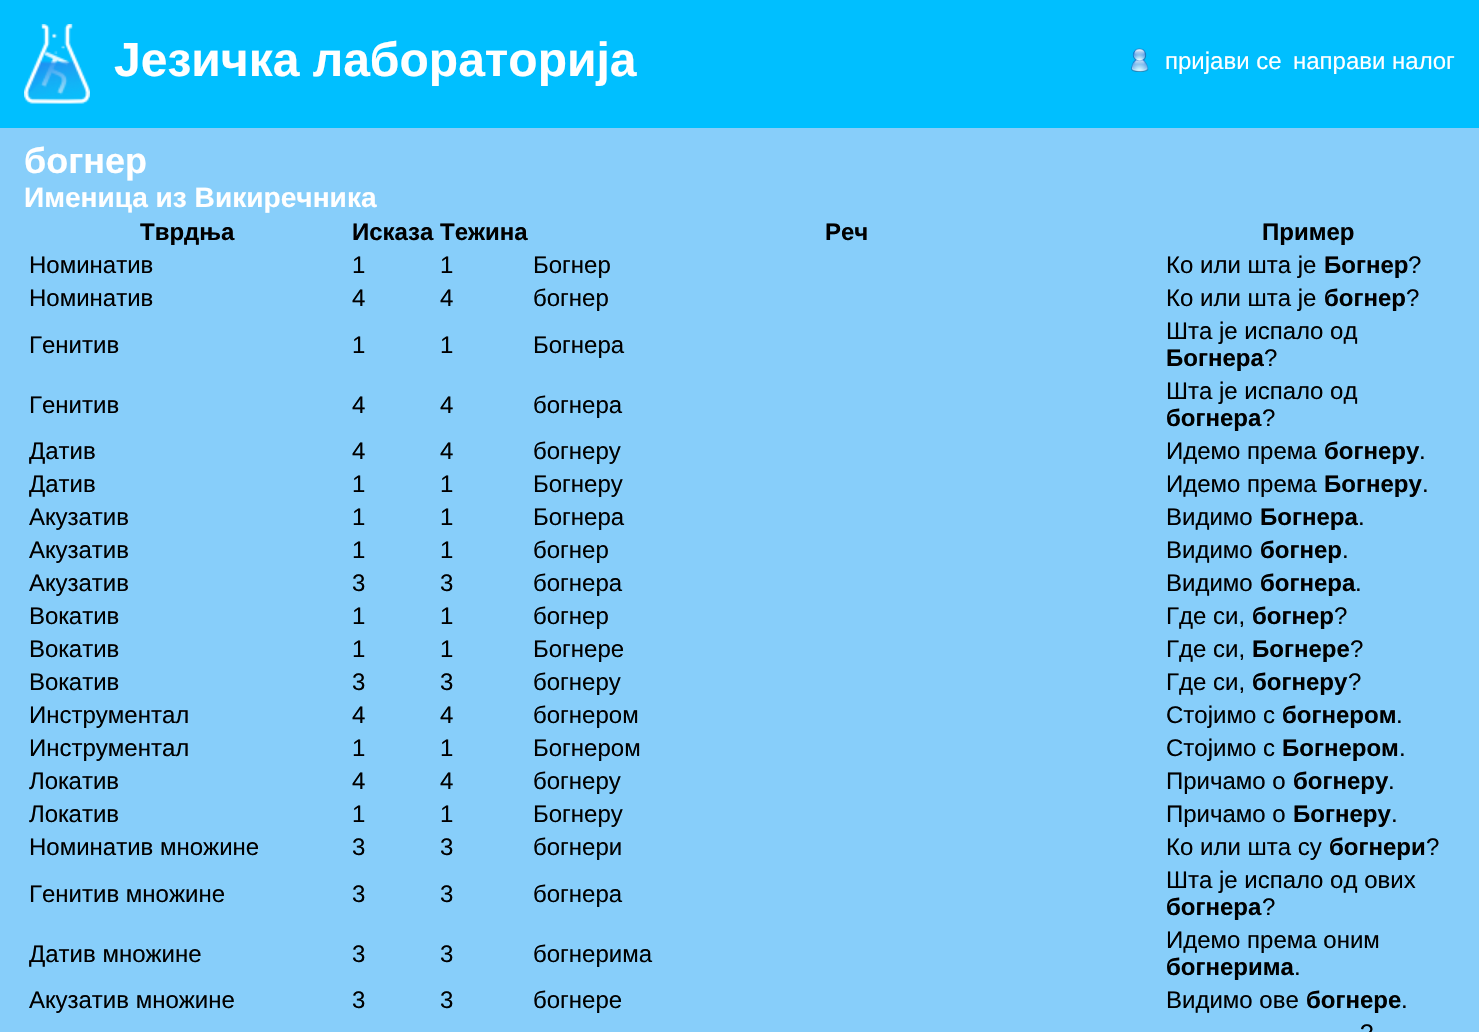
#include "include/core/SkBlurTypes.h"
#include "include/core/SkCanvas.h"
#include "include/core/SkData.h"
#include "include/core/SkFont.h"
#include "include/core/SkFontMgr.h"
#include "include/core/SkImage.h"
#include "include/core/SkMaskFilter.h"
#include "include/core/SkPaint.h"
#include "include/core/SkPathBuilder.h"
#include "include/core/SkTextBlob.h"
#include "include/effects/SkDashPathEffect.h"
#include "include/effects/SkGradientShader.h"
#include "include/utils/SkParsePath.h"

extern sk_sp<SkFontMgr> fontMgr;

void draw(SkCanvas* canvas) {
    SkPaint p;
    p.setAntiAlias(true);
    auto font = [&](const char* family, int weight, float size, bool italic = false) {
        SkFontStyle style(weight, SkFontStyle::kNormal_Width,
            italic ? SkFontStyle::kItalic_Slant : SkFontStyle::kUpright_Slant);
        SkFont result(fontMgr->matchFamilyStyle(family, style), size);
        result.setSubpixel(true);
        return result;
    };
    auto drawPhoto = [&](const char* path, float l, float t, float r, float b) {
        auto image = SkImages::DeferredFromEncodedData(SkData::MakeFromFileName(path));
        canvas->drawImageRect(image, SkRect::MakeLTRB(l, t, r, b), SkSamplingOptions());
    };
    canvas->clear(0xFF87CEFA);
    p.setColor(0xFF00BFFF);
    canvas->drawRect(SkRect::MakeLTRB(0, 0, 1479, 128), p);
    drawPhoto("media/1.png", 24, 24, 90, 104);
    auto font1 = font("Liberation Sans", 700, 48);
    p.setColor(0xFFFFFFFF);
    canvas->drawString("Језичка лабораторија", 114, 76, font1, p);
    drawPhoto("media/2.png", 1131, 48, 1149, 72);
    auto font2 = font("Liberation Sans", 400, 24);
    canvas->drawString("пријави се", 1165, 69, font2, p);
    canvas->drawString("направи налог", 1293, 69, font2, p);
    auto font3 = font("Liberation Sans", 700, 36);
    canvas->drawString("богнер", 24, 173, font3, p);
    auto font4 = font("Liberation Sans", 700, 28.1f);
    canvas->drawString("Именица из Викиречника", 24, 207, font4, p);
    auto font5 = font("Liberation Sans", 700, 24);
    p.setColor(0xFF000000);
    {
        const struct { const char* s; float x, y; } items[] = {
            {"Тврдња", 140, 240},
            {"Исказа", 352, 240},
            {"Тежина", 440, 240},
            {"Реч", 825, 240},
            {"Пример", 1262, 240},
        };
        for (auto [s, x, y] : items) {
            canvas->drawString(s, x, y, font5, p);
        }
    }
    {
        const struct { const char* s; float x, y; } items[] = {
            {"Номинатив", 29, 273},
            {"1", 352, 273},
            {"1", 440, 273},
            {"Богнер", 533, 273},
            {"Ко или шта је", 1166, 273},
        };
        for (auto [s, x, y] : items) {
            canvas->drawString(s, x, y, font2, p);
        }
    }
    canvas->drawString("Богнер", 1324, 273, font5, p);
    {
        const struct { const char* s; float x, y; } items[] = {
            {"?", 1408, 273},
            {"Номинатив", 29, 306},
            {"4", 352, 306},
            {"4", 440, 306},
            {"богнер", 533, 306},
            {"Ко или шта је", 1166, 306},
        };
        for (auto [s, x, y] : items) {
            canvas->drawString(s, x, y, font2, p);
        }
    }
    canvas->drawString("богнер", 1324, 306, font5, p);
    {
        const struct { const char* s; float x, y; } items[] = {
            {"?", 1406, 306},
            {"Генитив", 29, 353},
            {"1", 352, 353},
            {"1", 440, 353},
            {"Богнера", 533, 353},
            {"Шта је испало од", 1166, 339},
        };
        for (auto [s, x, y] : items) {
            canvas->drawString(s, x, y, font2, p);
        }
    }
    canvas->drawString("Богнера", 1166, 366, font5, p);
    {
        const struct { const char* s; float x, y; } items[] = {
            {"?", 1264, 366},
            {"Генитив", 29, 413},
            {"4", 352, 413},
            {"4", 440, 413},
            {"богнера", 533, 413},
            {"Шта је испало од", 1166, 399},
        };
        for (auto [s, x, y] : items) {
            canvas->drawString(s, x, y, font2, p);
        }
    }
    canvas->drawString("богнера", 1166, 426, font5, p);
    {
        const struct { const char* s; float x, y; } items[] = {
            {"?", 1262, 426},
            {"Датив", 29, 459},
            {"4", 352, 459},
            {"4", 440, 459},
            {"богнеру", 533, 459},
            {"Идемо према", 1166, 459},
        };
        for (auto [s, x, y] : items) {
            canvas->drawString(s, x, y, font2, p);
        }
    }
    canvas->drawString("богнеру", 1324, 459, font5, p);
    {
        const struct { const char* s; float x, y; } items[] = {
            {".", 1419, 459},
            {"Датив", 29, 492},
            {"1", 352, 492},
            {"1", 440, 492},
            {"Богнеру", 533, 492},
            {"Идемо према", 1166, 492},
        };
        for (auto [s, x, y] : items) {
            canvas->drawString(s, x, y, font2, p);
        }
    }
    canvas->drawString("Богнеру", 1324, 492, font5, p);
    {
        const struct { const char* s; float x, y; } items[] = {
            {".", 1422, 492},
            {"Акузатив", 29, 525},
            {"1", 352, 525},
            {"1", 440, 525},
            {"Богнера", 533, 525},
            {"Видимо", 1166, 525},
        };
        for (auto [s, x, y] : items) {
            canvas->drawString(s, x, y, font2, p);
        }
    }
    canvas->drawString("Богнера", 1260, 525, font5, p);
    {
        const struct { const char* s; float x, y; } items[] = {
            {".", 1358, 525},
            {"Акузатив", 29, 558},
            {"1", 352, 558},
            {"1", 440, 558},
            {"богнер", 533, 558},
            {"Видимо", 1166, 558},
        };
        for (auto [s, x, y] : items) {
            canvas->drawString(s, x, y, font2, p);
        }
    }
    canvas->drawString("богнер", 1260, 558, font5, p);
    {
        const struct { const char* s; float x, y; } items[] = {
            {".", 1342, 558},
            {"Акузатив", 29, 591},
            {"3", 352, 591},
            {"3", 440, 591},
            {"богнера", 533, 591},
            {"Видимо", 1166, 591},
        };
        for (auto [s, x, y] : items) {
            canvas->drawString(s, x, y, font2, p);
        }
    }
    canvas->drawString("богнера", 1260, 591, font5, p);
    {
        const struct { const char* s; float x, y; } items[] = {
            {".", 1355, 591},
            {"Вокатив", 29, 624},
            {"1", 352, 624},
            {"1", 440, 624},
            {"богнер", 533, 624},
            {"Где си,", 1166, 624},
        };
        for (auto [s, x, y] : items) {
            canvas->drawString(s, x, y, font2, p);
        }
    }
    canvas->drawString("богнер", 1252, 624, font5, p);
    {
        const struct { const char* s; float x, y; } items[] = {
            {"?", 1334, 624},
            {"Вокатив", 29, 657},
            {"1", 352, 657},
            {"1", 440, 657},
            {"Богнере", 533, 657},
            {"Где си,", 1166, 657},
        };
        for (auto [s, x, y] : items) {
            canvas->drawString(s, x, y, font2, p);
        }
    }
    canvas->drawString("Богнере", 1252, 657, font5, p);
    {
        const struct { const char* s; float x, y; } items[] = {
            {"?", 1350, 657},
            {"Вокатив", 29, 690},
            {"3", 352, 690},
            {"3", 440, 690},
            {"богнеру", 533, 690},
            {"Где си,", 1166, 690},
        };
        for (auto [s, x, y] : items) {
            canvas->drawString(s, x, y, font2, p);
        }
    }
    canvas->drawString("богнеру", 1252, 690, font5, p);
    {
        const struct { const char* s; float x, y; } items[] = {
            {"?", 1348, 690},
            {"Инструментал", 29, 723},
            {"4", 352, 723},
            {"4", 440, 723},
            {"богнером", 533, 723},
            {"Стојимо с", 1166, 723},
        };
        for (auto [s, x, y] : items) {
            canvas->drawString(s, x, y, font2, p);
        }
    }
    canvas->drawString("богнером", 1282, 723, font5, p);
    {
        const struct { const char* s; float x, y; } items[] = {
            {".", 1396, 723},
            {"Инструментал", 29, 756},
            {"1", 352, 756},
            {"1", 440, 756},
            {"Богнером", 533, 756},
            {"Стојимо с", 1166, 756},
        };
        for (auto [s, x, y] : items) {
            canvas->drawString(s, x, y, font2, p);
        }
    }
    canvas->drawString("Богнером", 1282, 756, font5, p);
    {
        const struct { const char* s; float x, y; } items[] = {
            {".", 1399, 756},
            {"Локатив", 29, 789},
            {"4", 352, 789},
            {"4", 440, 789},
            {"богнеру", 533, 789},
            {"Причамо о", 1166, 789},
        };
        for (auto [s, x, y] : items) {
            canvas->drawString(s, x, y, font2, p);
        }
    }
    canvas->drawString("богнеру", 1293, 789, font5, p);
    {
        const struct { const char* s; float x, y; } items[] = {
            {".", 1388, 789},
            {"Локатив", 29, 822},
            {"1", 352, 822},
            {"1", 440, 822},
            {"Богнеру", 533, 822},
            {"Причамо о", 1166, 822},
        };
        for (auto [s, x, y] : items) {
            canvas->drawString(s, x, y, font2, p);
        }
    }
    canvas->drawString("Богнеру", 1293, 822, font5, p);
    {
        const struct { const char* s; float x, y; } items[] = {
            {".", 1391, 822},
            {"Номинатив множине", 29, 855},
            {"3", 352, 855},
            {"3", 440, 855},
            {"богнери", 533, 855},
            {"Ко или шта су", 1166, 855},
        };
        for (auto [s, x, y] : items) {
            canvas->drawString(s, x, y, font2, p);
        }
    }
    canvas->drawString("богнери", 1329, 855, font5, p);
    {
        const struct { const char* s; float x, y; } items[] = {
            {"?", 1426, 855},
            {"Генитив множине", 29, 902},
            {"3", 352, 902},
            {"3", 440, 902},
            {"богнера", 533, 902},
            {"Шта је испало од ових", 1166, 888},
        };
        for (auto [s, x, y] : items) {
            canvas->drawString(s, x, y, font2, p);
        }
    }
    canvas->drawString("богнера", 1166, 915, font5, p);
    {
        const struct { const char* s; float x, y; } items[] = {
            {"?", 1262, 915},
            {"Датив множине", 29, 962},
            {"3", 352, 962},
            {"3", 440, 962},
            {"богнерима", 533, 962},
            {"Идемо према оним", 1166, 948},
        };
        for (auto [s, x, y] : items) {
            canvas->drawString(s, x, y, font2, p);
        }
    }
    canvas->drawString("богнерима", 1166, 975, font5, p);
    {
        const struct { const char* s; float x, y; } items[] = {
            {".", 1294, 975},
            {"Акузатив множине", 29, 1008},
            {"3", 352, 1008},
            {"3", 440, 1008},
            {"богнере", 533, 1008},
            {"Видимо ове", 1166, 1008},
        };
        for (auto [s, x, y] : items) {
            canvas->drawString(s, x, y, font2, p);
        }
    }
    canvas->drawString("богнере", 1306, 1008, font5, p);
    canvas->drawString(".", 1401, 1008, font2, p);
    canvas->drawString("?", 1360, 1041, font2, p);
}
